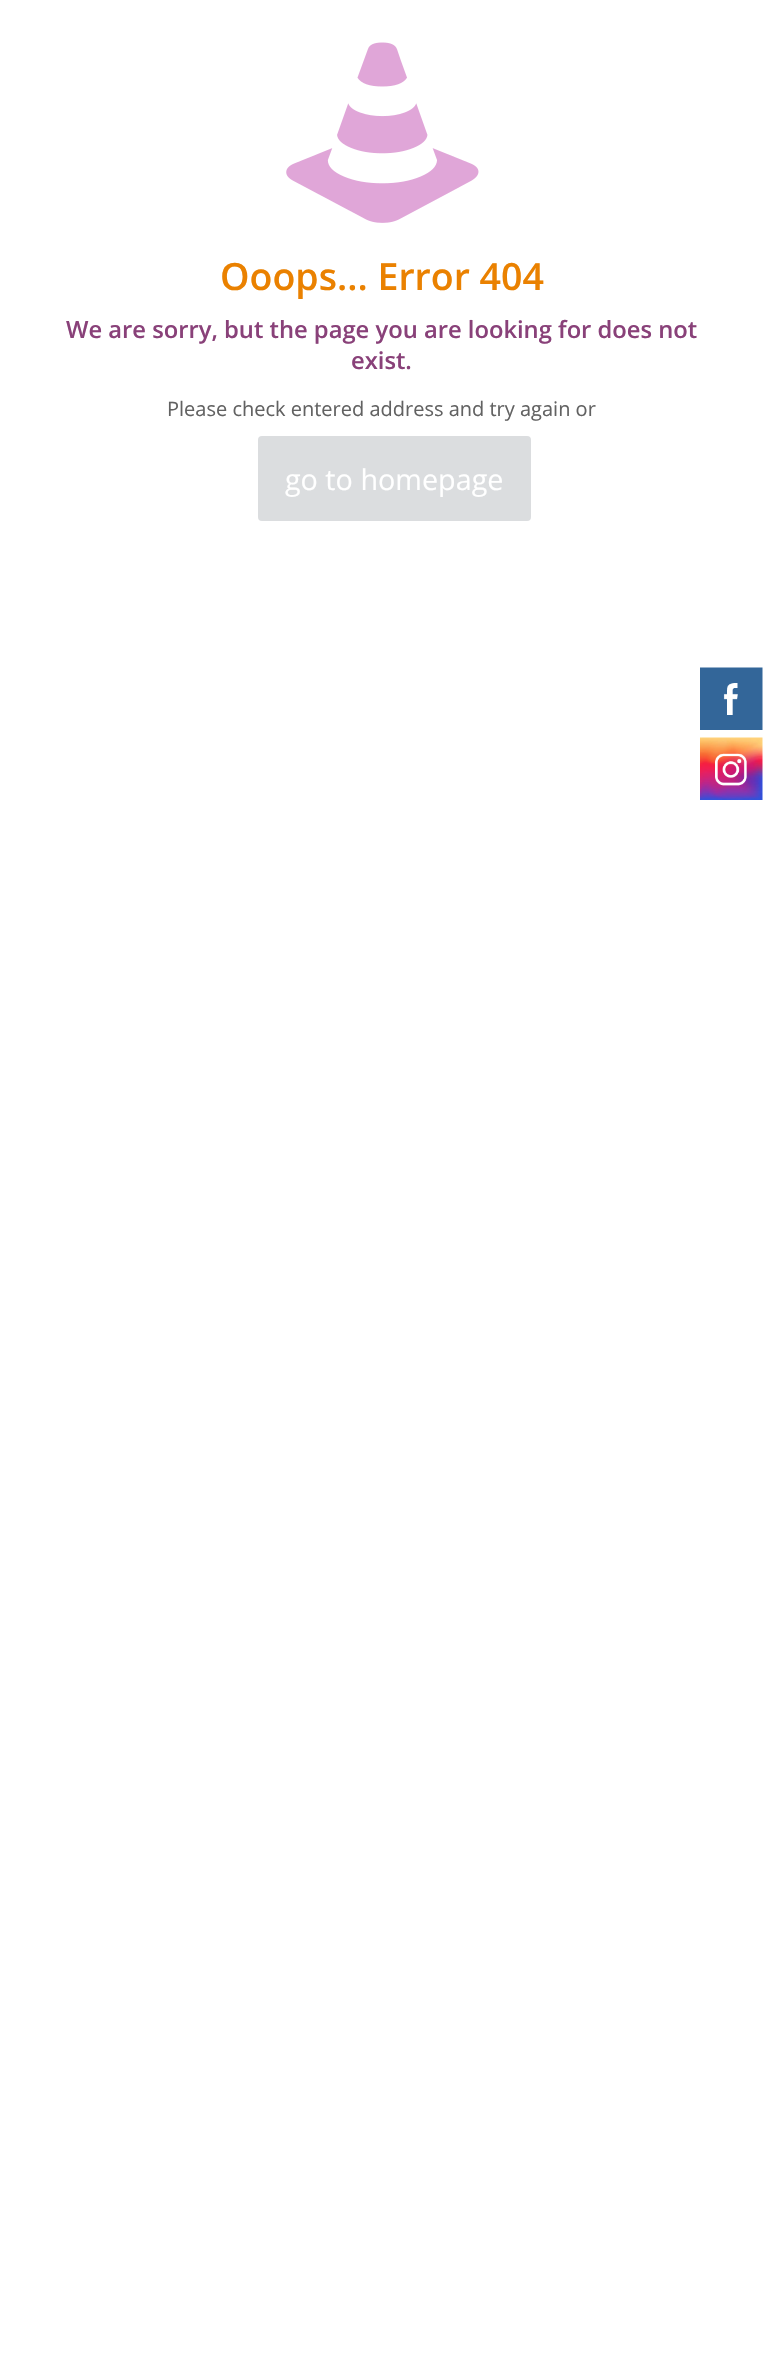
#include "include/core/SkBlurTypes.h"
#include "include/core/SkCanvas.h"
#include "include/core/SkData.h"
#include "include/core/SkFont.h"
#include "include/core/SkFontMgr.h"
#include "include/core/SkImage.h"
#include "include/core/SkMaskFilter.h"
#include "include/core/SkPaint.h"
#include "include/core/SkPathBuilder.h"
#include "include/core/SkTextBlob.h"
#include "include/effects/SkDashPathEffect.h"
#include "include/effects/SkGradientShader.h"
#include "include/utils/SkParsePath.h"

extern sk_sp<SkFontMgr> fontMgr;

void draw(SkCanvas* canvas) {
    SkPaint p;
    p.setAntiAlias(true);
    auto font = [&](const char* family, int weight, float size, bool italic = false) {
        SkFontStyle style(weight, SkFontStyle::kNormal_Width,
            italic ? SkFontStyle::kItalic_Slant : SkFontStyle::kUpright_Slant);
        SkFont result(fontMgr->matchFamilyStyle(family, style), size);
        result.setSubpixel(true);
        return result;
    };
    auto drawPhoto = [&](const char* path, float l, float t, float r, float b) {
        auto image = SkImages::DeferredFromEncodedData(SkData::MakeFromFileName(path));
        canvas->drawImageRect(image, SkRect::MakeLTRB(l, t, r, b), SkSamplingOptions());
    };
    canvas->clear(0xFFFFFFFF);
    drawPhoto("media/1.png", 286, 42, 479, 223);
    auto font1 = font("Open Sans", 600, 37.5f);
    p.setColor(0xFFEA8100);
    canvas->drawString("Ooops... Error 404", 220, 290, font1, p);
    auto font2 = font("Open Sans", 600, 23.75f);
    p.setColor(0xFF894179);
    canvas->drawString("We are sorry, but the page you are looking for does not", 66, 338, font2, p);
    canvas->drawString("exist.", 351, 369, font2, p);
    auto font3 = font("Open Sans", 400, 20);
    p.setColor(0xFF626262);
    canvas->drawString("Please check entered address and try again or", 167, 416, font3, p);
    p.setColor(0xFFDBDDDF);
    canvas->drawRoundRect(SkRect::MakeLTRB(258, 436, 531, 521), 4, 4, p);
    auto font4 = font("Open Sans", 400, 28.75f);
    p.setColor(0xFFFFFFFF);
    canvas->drawString("go to homepage", 285, 490, font4, p);
    drawPhoto("media/2.png", 700, 667, 763, 730);
    drawPhoto("media/3.png", 700, 737, 763, 800);
}
